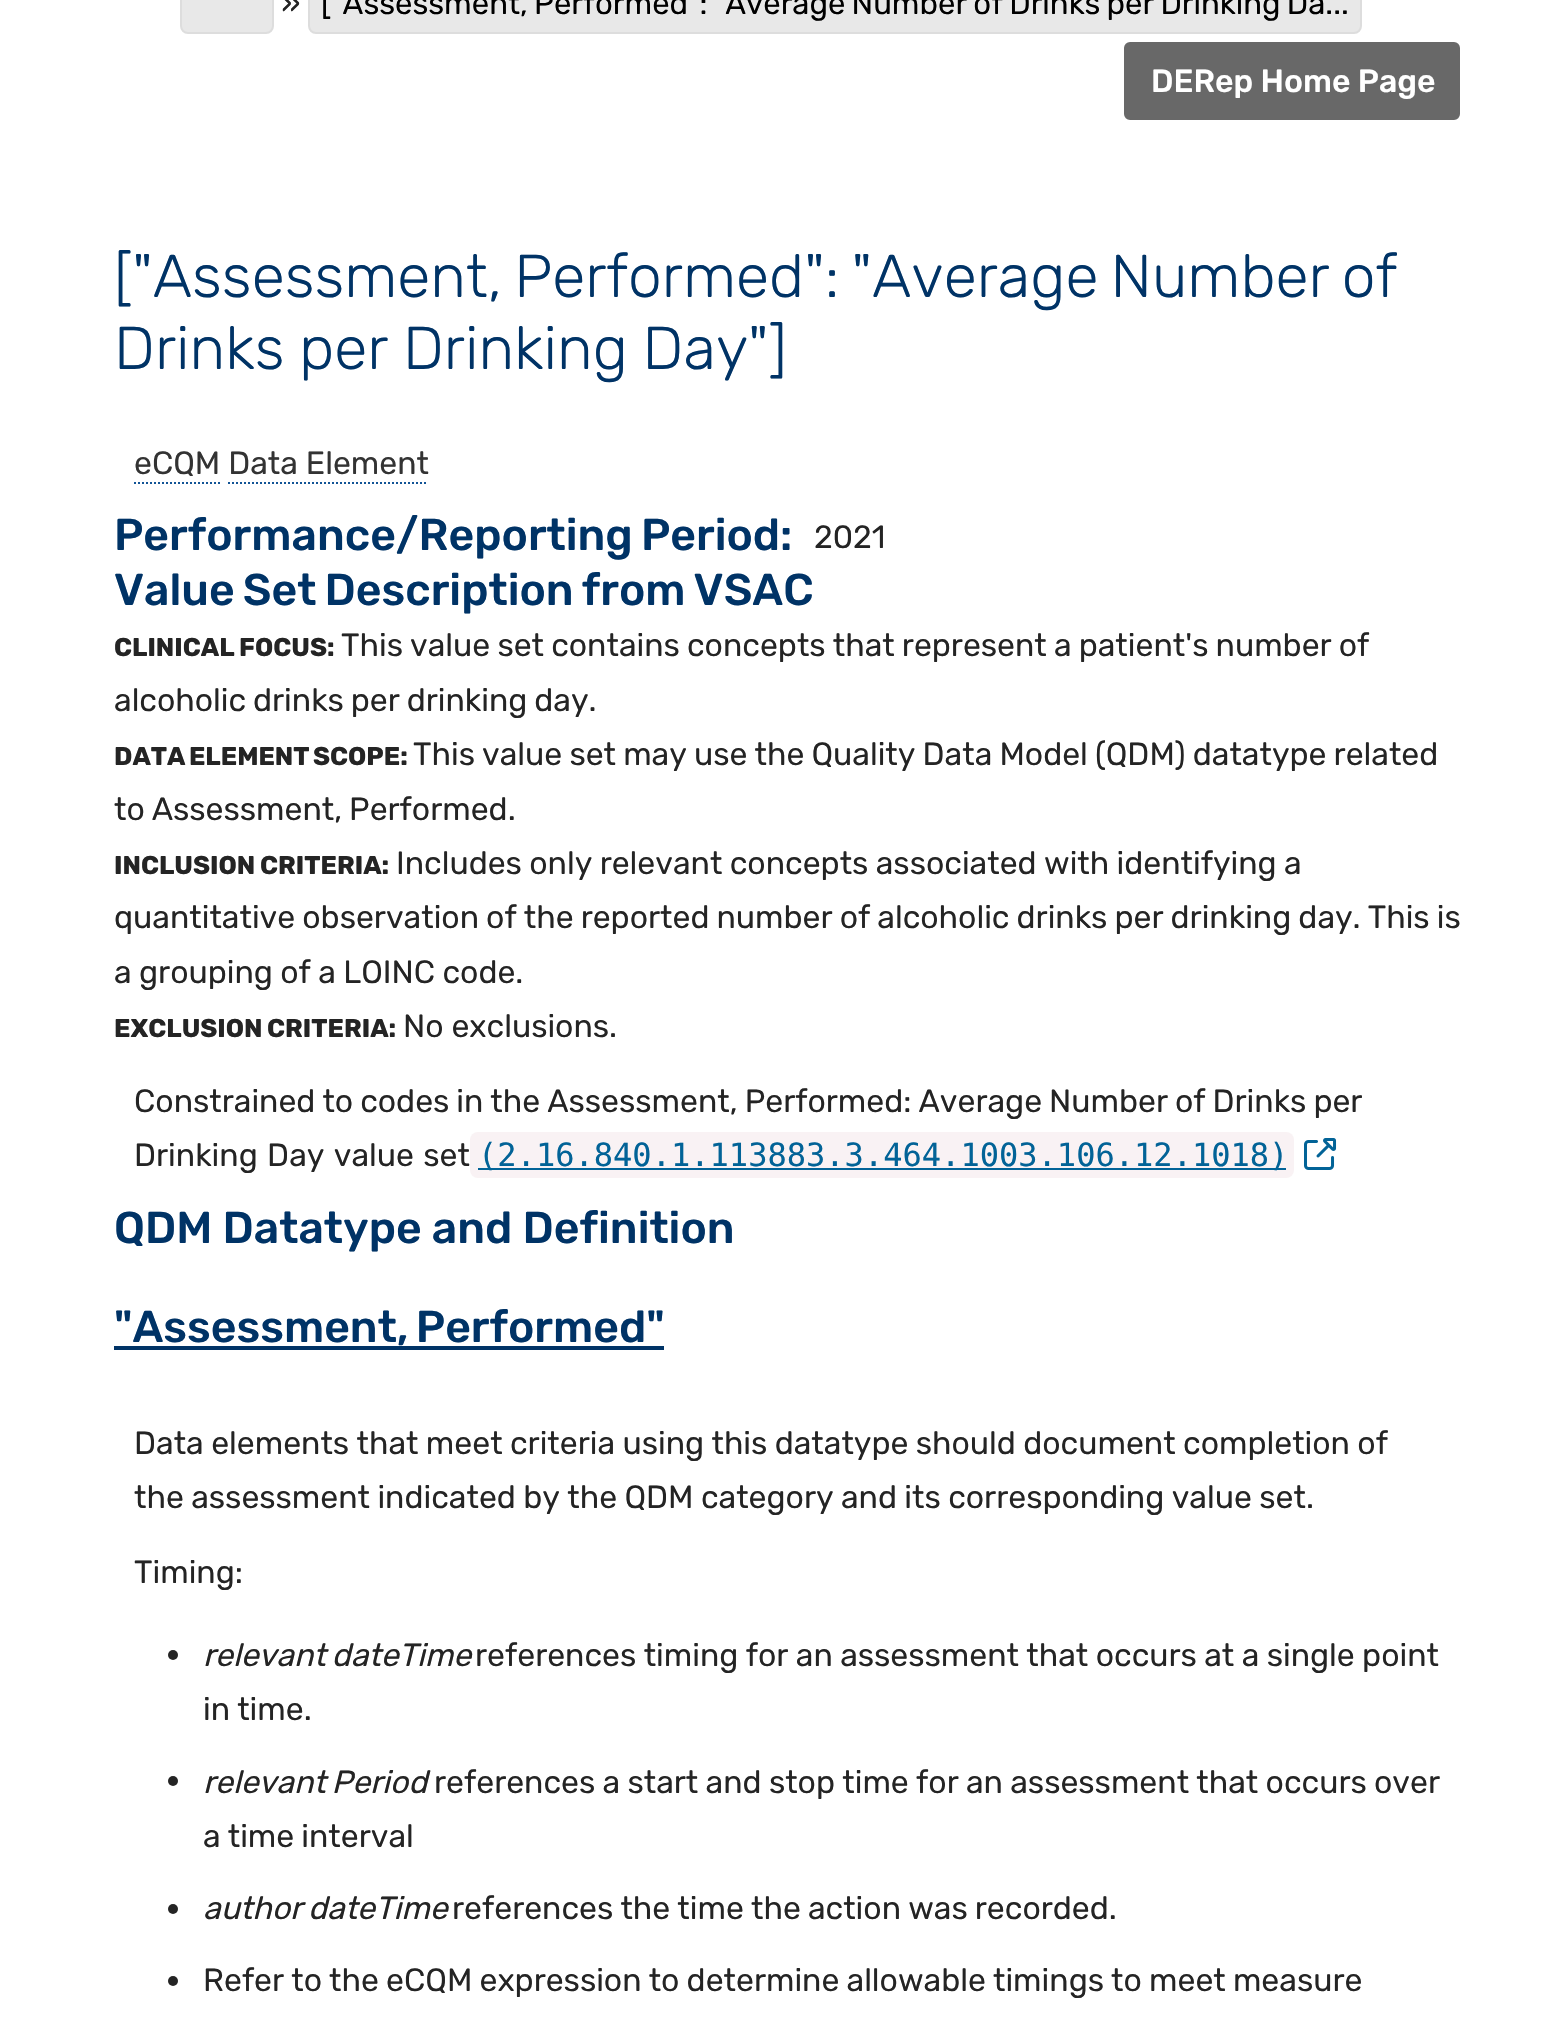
#include "include/core/SkBlurTypes.h"
#include "include/core/SkCanvas.h"
#include "include/core/SkData.h"
#include "include/core/SkFont.h"
#include "include/core/SkFontMgr.h"
#include "include/core/SkImage.h"
#include "include/core/SkMaskFilter.h"
#include "include/core/SkPaint.h"
#include "include/core/SkPathBuilder.h"
#include "include/core/SkTextBlob.h"
#include "include/effects/SkDashPathEffect.h"
#include "include/effects/SkGradientShader.h"
#include "include/utils/SkParsePath.h"

extern sk_sp<SkFontMgr> fontMgr;

void draw(SkCanvas* canvas) {
    SkPaint p;
    p.setAntiAlias(true);
    auto font = [&](const char* family, int weight, float size, bool italic = false) {
        SkFontStyle style(weight, SkFontStyle::kNormal_Width,
            italic ? SkFontStyle::kItalic_Slant : SkFontStyle::kUpright_Slant);
        SkFont result(fontMgr->matchFamilyStyle(family, style), size);
        result.setSubpixel(true);
        return result;
    };
    auto drawTracked = [&](const char* s, float x, float y, const SkFont& font, const SkPaint& ink, float letter, float word) {
        std::vector<SkGlyphID> glyphs(font.countText(s, strlen(s), SkTextEncoding::kUTF8));
        std::vector<float> xs(glyphs.size());
        font.textToGlyphs(s, strlen(s), SkTextEncoding::kUTF8, glyphs);
        font.getXPos(glyphs, xs, x);
        float extra = 0;
        for (size_t i = 0; i < glyphs.size(); i++) {
            xs[i] += extra;
            extra += letter + word * (glyphs[i] == font.unicharToGlyph(' '));
        }
        canvas->drawTextBlob(SkTextBlob::MakeFromPosHGlyphs(glyphs, xs, y, font), 0, 0, ink);
    };
    auto drawPhoto = [&](const char* path, float l, float t, float r, float b) {
        auto image = SkImages::DeferredFromEncodedData(SkData::MakeFromFileName(path));
        canvas->drawImageRect(image, SkRect::MakeLTRB(l, t, r, b), SkSamplingOptions());
    };
    canvas->clear(0xFFFFFFFF);
    p.setColor(0xFFE8E8E8);
    canvas->drawRoundRect(SkRect::MakeLTRB(181, -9, 273, 33), 7, 7, p);
    p.setStyle(SkPaint::kStroke_Style);
    p.setStrokeWidth(2);
    p.setColor(0xFFDDDDDD);
    canvas->drawRoundRect(SkRect::MakeLTRB(181, -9, 273, 33), 7, 7, p);
    auto font1 = font("Rubik", 400, 32.05f);
    p.setStyle(SkPaint::kFill_Style);
    p.setColor(0xFF242424);
    canvas->drawString("»", 281, 14, font1, p);
    p.setColor(0xFFE8E8E8);
    canvas->drawRoundRect(SkRect::MakeLTRB(309, -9, 1361, 33), 7, 7, p);
    p.setStyle(SkPaint::kStroke_Style);
    p.setColor(0xFFDDDDDD);
    canvas->drawRoundRect(SkRect::MakeLTRB(309, -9, 1361, 33), 7, 7, p);
    auto font2 = font("Rubik", 400, 31.15f);
    p.setStyle(SkPaint::kFill_Style);
    p.setColor(0xFF000000);
    drawTracked("[\"Assessment, Performed\": \"Average Number of Drinks per Drinking Da...", 321, 14, font2, p, 0, -1.5f);
    p.setColor(0xFF686868);
    canvas->drawRoundRect(SkRect::MakeLTRB(1125, 43, 1459, 119), 5, 5, p);
    p.setStyle(SkPaint::kStroke_Style);
    canvas->drawRoundRect(SkRect::MakeLTRB(1125, 43, 1459, 119), 5, 5, p);
    auto font3 = font("Rubik", 500, 32.05f);
    p.setStyle(SkPaint::kFill_Style);
    p.setColor(0xFFFFFFFF);
    canvas->drawString("DERep Home Page", 1151, 92, font3, p);
    auto font4 = font("Rubik", 300, 60.5f);
    p.setColor(0xFF003366);
    drawTracked("[\"Assessment, Performed\": \"Average Number of", 114, 297, font4, p, 0, -3.5f);
    drawTracked("Drinks per Drinking Day\"]", 114, 369, font4, p, 0, -1);
    p.setColor(0xFF333333);
    canvas->drawString("eCQM Data Element", 134, 474, font1, p);
    p.setStyle(SkPaint::kStroke_Style);
    p.setColor(0xFF125496);
    p.setPathEffect(SkDashPathEffect::Make({{2, 2}}, 0));
    canvas->drawPath(SkPathBuilder().moveTo(134, 483).lineTo(220, 483).detach(), p);
    p.setPathEffect(nullptr);
    p.setPathEffect(SkDashPathEffect::Make({{2, 2}}, 0));
    canvas->drawPath(SkPathBuilder().moveTo(228, 483).lineTo(428, 483).detach(), p);
    p.setPathEffect(nullptr);
    auto font5 = font("Rubik", 500, 44.5f);
    p.setStyle(SkPaint::kFill_Style);
    p.setColor(0xFF003366);
    drawTracked("Performance/Reporting Period", 114, 550, font5, p, 0, -2);
    canvas->drawString(":", 780, 550, font5, p);
    p.setColor(0xFF242424);
    canvas->drawString("2021", 814, 548, font1, p);
    p.setColor(0xFF003366);
    drawTracked("Value Set Description from VSAC", 114, 605, font5, p, 0, -2);
    auto font6 = font("Rubik", 700, 25.6f);
    p.setColor(0xFF242424);
    drawTracked("CLINICAL FOCUS:", 114, 656, font6, p, 0, -1);
    drawTracked("This value set contains concepts that represent a patient's number of", 341, 656, font1, p, 0, -0.75f);
    drawTracked("alcoholic drinks per drinking day.", 114, 711, font1, p, 0, -1);
    drawTracked("DATA ELEMENT SCOPE:", 114, 765, font6, p, 0, -2);
    drawTracked("This value set may use the Quality Data Model (QDM) datatype related", 413, 765, font1, p, 0, -0.75f);
    drawTracked("to Assessment, Performed.", 114, 820, font1, p, 0, -1);
    drawTracked("INCLUSION CRITERIA:", 114, 874, font6, p, 0, -0.6f);
    drawTracked("Includes only relevant concepts associated with identifying a", 396, 874, font1, p, 0, -0.5f);
    drawTracked("quantitative observation of the reported number of alcoholic drinks per drinking day. This is", 114, 928, font1, p, 0, -0.8f);
    drawTracked("a grouping of a LOINC code.", 114, 983, font1, p, 0, -0.5f);
    drawTracked("EXCLUSION CRITERIA:", 114, 1037, font6, p, 0, -1);
    canvas->drawString("No exclusions.", 403, 1037, font1, p);
    drawTracked("Constrained to codes in the Assessment, Performed: Average Number of Drinks per", 134, 1112, font1, p, 0, -0.9f);
    drawTracked("Drinking Day value set", 134, 1166, font1, p, 0, 1.5f);
    p.setColor(0xFFF9F2F4);
    canvas->drawRoundRect(SkRect::MakeLTRB(470, 1132, 1294, 1178), 8, 8, p);
    p.setColor(0xFF026397);
    canvas->drawRect(SkRect::MakeLTRB(478, 1168, 1286, 1170), p);
    auto font7 = font("DejaVu Sans Mono", 400, 32.05f);
    canvas->drawString("(2.16.840.1.113883.3.464.1003.106.12.1018)", 478, 1166, font7, p);
    drawPhoto("media/1.png", 1304, 1138, 1337, 1170);
    p.setColor(0xFF003366);
    canvas->drawString("QDM Datatype and Definition", 114, 1243, font5, p);
    drawTracked("\"Assessment, Performed\"", 114, 1342, font5, p, 0, -3);
    canvas->drawRect(SkRect::MakeLTRB(114, 1346, 664, 1350), p);
    p.setColor(0xFF242424);
    drawTracked("Data elements that meet criteria using this datatype should document completion of", 134, 1454, font1, p, 0, -0.5f);
    drawTracked("the assessment indicated by the QDM category and its corresponding value set.", 134, 1508, font1, p, 0, -0.5f);
    canvas->drawString("Timing:", 134, 1583, font1, p);
    canvas->drawCircle(173, 1655, 5, p);
    auto font8 = font("Rubik", 400, 32.05f, true);
    drawTracked("relevant dateTime", 203, 1666, font8, p, 0, -2);
    drawTracked("references timing for an assessment that occurs at a single point", 475, 1666, font1, p, 0, -0.5f);
    drawTracked("in time.", 203, 1720, font1, p, 0, -0.75f);
    canvas->drawCircle(173, 1781, 5, p);
    drawTracked("relevant Period", 203, 1793, font8, p, 0, -2);
    drawTracked("references a start and stop time for an assessment that occurs over", 434, 1793, font1, p, 0, -0.6f);
    drawTracked("a time interval", 203, 1847, font1, p, 0, -0.8f);
    canvas->drawCircle(173, 1909, 5, p);
    drawTracked("author dateTime", 203, 1919, font8, p, 0, -2);
    drawTracked("references the time the action was recorded.", 452, 1919, font1, p, 0, -0.75f);
    canvas->drawCircle(173, 1981, 5, p);
    drawTracked("Refer to the eCQM expression to determine allowable timings to meet measure", 203, 1991, font1, p, 0, -0.75f);
}
